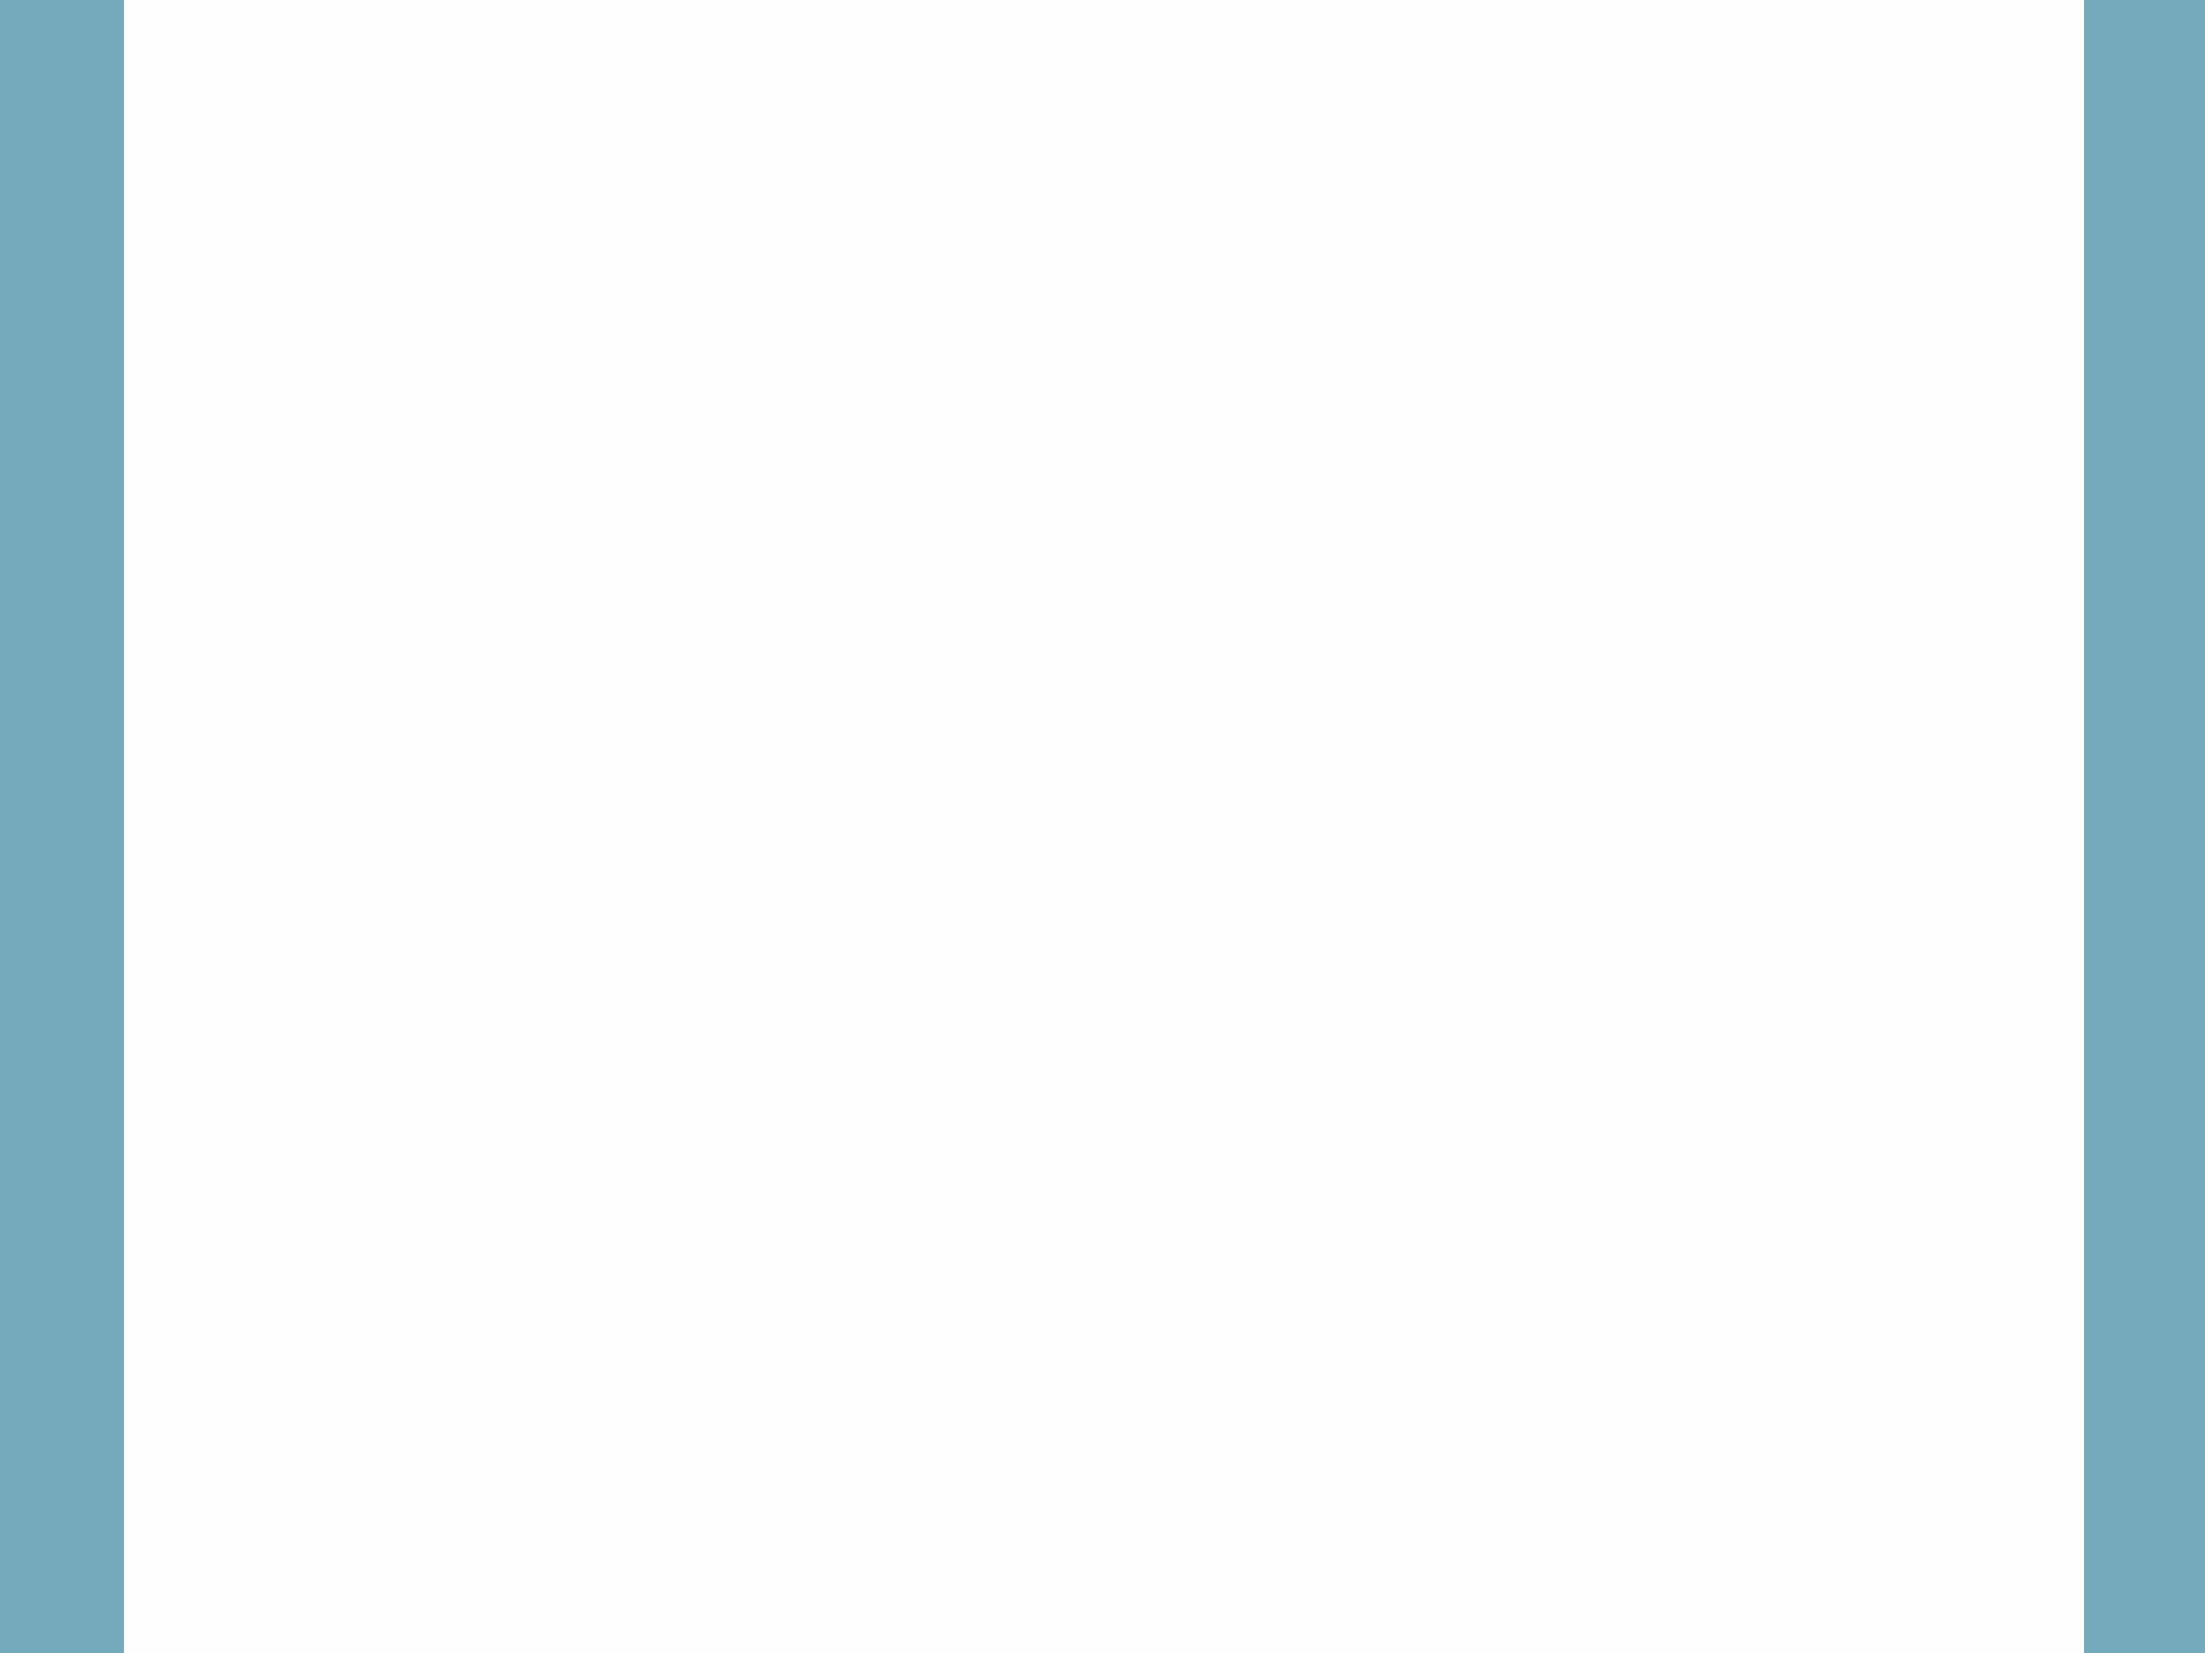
#include "include/core/SkBlurTypes.h"
#include "include/core/SkCanvas.h"
#include "include/core/SkData.h"
#include "include/core/SkFont.h"
#include "include/core/SkFontMgr.h"
#include "include/core/SkImage.h"
#include "include/core/SkMaskFilter.h"
#include "include/core/SkPaint.h"
#include "include/core/SkPathBuilder.h"
#include "include/core/SkTextBlob.h"
#include "include/effects/SkDashPathEffect.h"
#include "include/effects/SkGradientShader.h"
#include "include/utils/SkParsePath.h"

extern sk_sp<SkFontMgr> fontMgr;

void draw(SkCanvas* canvas) {
    SkPaint p;
    p.setAntiAlias(true);
    canvas->clear(0xFF77AABB);
    p.setColor(0xFFFDFDFD);
    canvas->drawRect(SkRect::MakeLTRB(124, 0, 2084, 1653), p);
}
